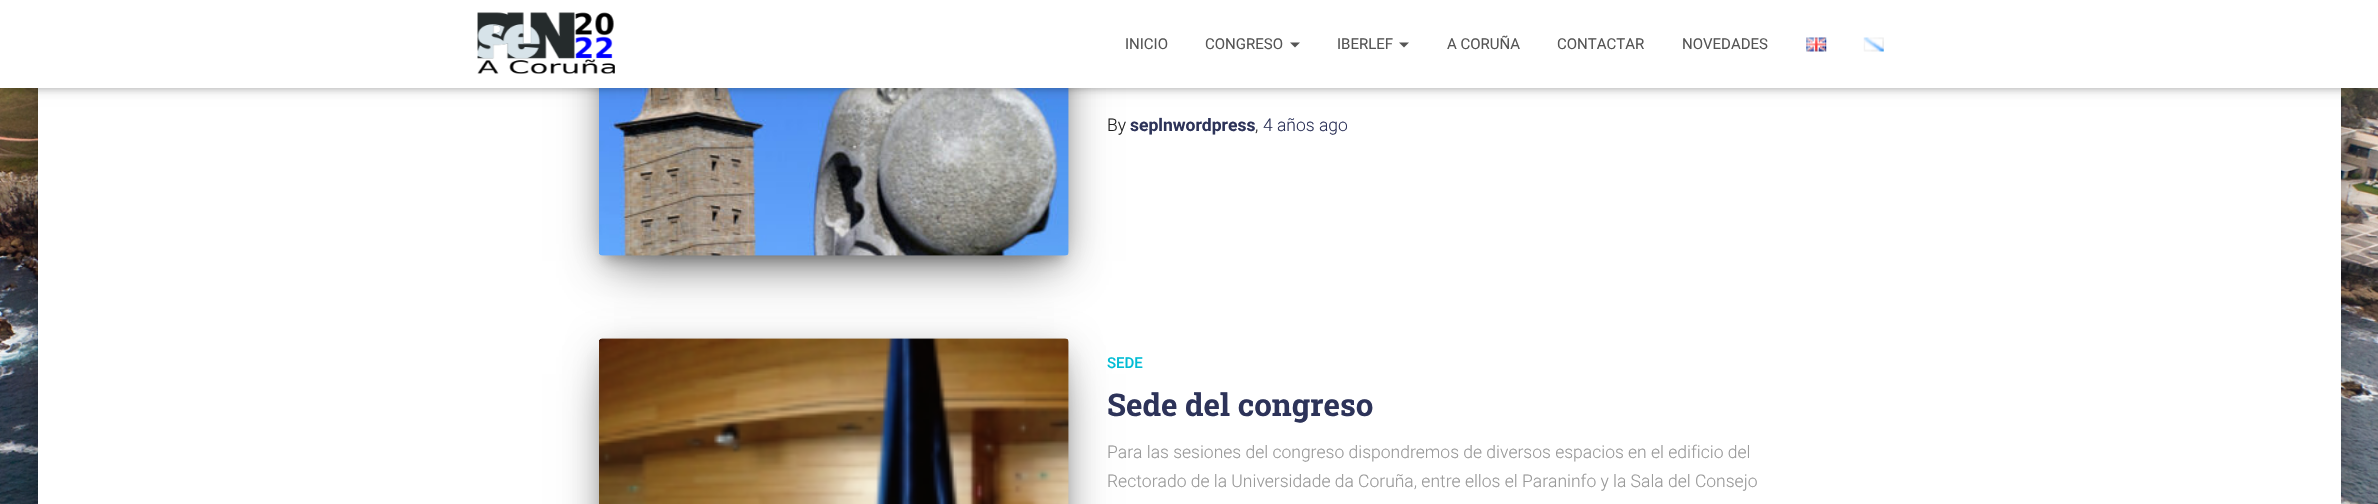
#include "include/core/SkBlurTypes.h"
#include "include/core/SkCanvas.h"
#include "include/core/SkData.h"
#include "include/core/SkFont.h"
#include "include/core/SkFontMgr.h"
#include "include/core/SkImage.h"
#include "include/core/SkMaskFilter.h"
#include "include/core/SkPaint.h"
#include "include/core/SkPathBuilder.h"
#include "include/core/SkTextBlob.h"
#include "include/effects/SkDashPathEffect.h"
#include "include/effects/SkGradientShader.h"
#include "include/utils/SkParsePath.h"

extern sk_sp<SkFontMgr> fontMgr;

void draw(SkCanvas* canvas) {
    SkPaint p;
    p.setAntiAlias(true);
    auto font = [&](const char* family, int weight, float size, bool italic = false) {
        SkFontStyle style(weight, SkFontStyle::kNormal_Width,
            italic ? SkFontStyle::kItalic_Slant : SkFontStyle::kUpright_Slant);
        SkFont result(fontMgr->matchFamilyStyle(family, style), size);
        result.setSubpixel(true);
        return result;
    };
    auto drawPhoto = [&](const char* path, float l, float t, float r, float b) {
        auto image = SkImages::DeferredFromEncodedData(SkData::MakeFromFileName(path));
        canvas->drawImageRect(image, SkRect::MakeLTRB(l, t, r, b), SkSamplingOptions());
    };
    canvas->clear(0xFFFFFFFF);
    drawPhoto("media/1.png", 0, 88, 2378, 504);
    p.setColor(0x33000000);
    p.setMaskFilter(SkMaskFilter::MakeBlur(kNormal_SkBlurStyle, 6));
    canvas->drawRoundRect(SkRect::MakeLTRB(44, -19, 2335, 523), 1, 1, p);
    p.setMaskFilter(nullptr);
    p.setColor(0x1F000000);
    p.setMaskFilter(SkMaskFilter::MakeBlur(kNormal_SkBlurStyle, 19));
    canvas->drawRoundRect(SkRect::MakeLTRB(31, -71, 2348, 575), 14, 14, p);
    p.setMaskFilter(nullptr);
    p.setColor(0x24000000);
    p.setMaskFilter(SkMaskFilter::MakeBlur(kNormal_SkBlurStyle, 15));
    canvas->drawRoundRect(SkRect::MakeLTRB(35, -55, 2344, 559), 10, 10, p);
    p.setMaskFilter(nullptr);
    p.setColor(0xFFFFFFFF);
    canvas->drawRect(SkRect::MakeLTRB(38, 88, 2341, 504), p);
    p.setColor(0x33000000);
    p.setMaskFilter(SkMaskFilter::MakeBlur(kNormal_SkBlurStyle, 6));
    canvas->drawRect(SkRect::MakeLTRB(605, -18, 1063, 260), p);
    p.setMaskFilter(nullptr);
    p.setColor(0x1F000000);
    p.setMaskFilter(SkMaskFilter::MakeBlur(kNormal_SkBlurStyle, 15.5f));
    canvas->drawRoundRect(SkRect::MakeLTRB(599, -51, 1069, 261), 4, 4, p);
    p.setMaskFilter(nullptr);
    p.setColor(0x8F000000);
    p.setMaskFilter(SkMaskFilter::MakeBlur(kNormal_SkBlurStyle, 24));
    canvas->drawRect(SkRect::MakeLTRB(614, -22, 1054, 261), p);
    p.setMaskFilter(nullptr);
    drawPhoto("media/5.png", 599, 88, 1069, 256);
    p.setColor(0x1A000000);
    p.setMaskFilter(SkMaskFilter::MakeBlur(kNormal_SkBlurStyle, 3));
    canvas->drawRect(SkRect::MakeLTRB(3, 8, 2376, 90), p);
    p.setMaskFilter(nullptr);
    p.setColor(0x1F000000);
    p.setMaskFilter(SkMaskFilter::MakeBlur(kNormal_SkBlurStyle, 6));
    canvas->drawRect(SkRect::MakeLTRB(0, 1, 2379, 89), p);
    p.setMaskFilter(nullptr);
    p.setColor(0x6B000000);
    p.setMaskFilter(SkMaskFilter::MakeBlur(kNormal_SkBlurStyle, 6));
    canvas->drawRect(SkRect::MakeLTRB(8, 9, 2371, 81), p);
    p.setMaskFilter(nullptr);
    p.setColor(0xFFFFFFFF);
    canvas->drawRect(SkRect::MakeLTRB(0, 0, 2378, 88), p);
    drawPhoto("media/2.png", 477, 12, 615, 74);
    auto font1 = font("Roboto", 400, 15);
    p.setColor(0xFF555555);
    canvas->drawString("INICIO", 1125, 49, font1, p);
    canvas->drawString("CONGRESO", 1205, 49, font1, p);
    canvas->drawPath(SkPathBuilder().moveTo(1290, 42.5f).lineTo(1300, 42.5f).lineTo(1295, 47.5f).close().detach(), p);
    canvas->drawString("IBERLEF", 1337, 49, font1, p);
    canvas->drawPath(SkPathBuilder().moveTo(1399, 42.5f).lineTo(1409, 42.5f).lineTo(1404, 47.5f).close().detach(), p);
    {
        const struct { const char* s; float x, y; } items[] = {
            {"A CORUÑA", 1447, 49},
            {"CONTACTAR", 1557, 49},
            {"NOVEDADES", 1682, 49},
        };
        for (auto [s, x, y] : items) {
            canvas->drawString(s, x, y, font1, p);
        }
    }
    drawPhoto("media/3.png", 1806, 37, 1827, 52);
    drawPhoto("media/4.png", 1863, 37, 1884, 52);
    auto font2 = font("Roboto", 300, 17.5f);
    p.setColor(0xFF212121);
    canvas->drawString("By", 1107, 131, font2, p);
    auto font3 = font("Roboto", 700, 17.5f);
    p.setColor(0xFF2D3359);
    canvas->drawString("seplnwordpress", 1130, 131, font3, p);
    p.setColor(0xFF212121);
    canvas->drawString(",", 1255, 131, font2, p);
    p.setColor(0xFF2D3359);
    canvas->drawString("4 años ago", 1263, 131, font2, p);
    p.setColor(0x33000000);
    p.setMaskFilter(SkMaskFilter::MakeBlur(kNormal_SkBlurStyle, 6));
    canvas->drawRect(SkRect::MakeLTRB(605, 355, 1063, 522), p);
    p.setMaskFilter(nullptr);
    p.setColor(0x1F000000);
    p.setMaskFilter(SkMaskFilter::MakeBlur(kNormal_SkBlurStyle, 15.5f));
    canvas->drawRoundRect(SkRect::MakeLTRB(599, 344, 1069, 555), 4, 4, p);
    p.setMaskFilter(nullptr);
    p.setColor(0x8F000000);
    p.setMaskFilter(SkMaskFilter::MakeBlur(kNormal_SkBlurStyle, 24));
    canvas->drawRect(SkRect::MakeLTRB(614, 374, 1054, 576), p);
    p.setMaskFilter(nullptr);
    drawPhoto("media/6.png", 599, 338, 1069, 504);
    auto font4 = font("Roboto", 500, 15);
    p.setColor(0xFF00BCD4);
    canvas->drawString("SEDE", 1107, 368, font4, p);
    auto font5 = font("Roboto Slab", 700, 31.25f);
    p.setColor(0xFF2D3359);
    canvas->drawString("Sede del congreso", 1107, 416, font5, p);
    p.setColor(0xFF999999);
    canvas->drawString("Para las sesiones del congreso dispondremos de diversos espacios en el edificio del", 1107, 458, font2, p);
    canvas->drawString("Rectorado de la Universidade da Coruña, entre ellos el Paraninfo y la Sala del Consejo", 1107, 487, font2, p);
}
